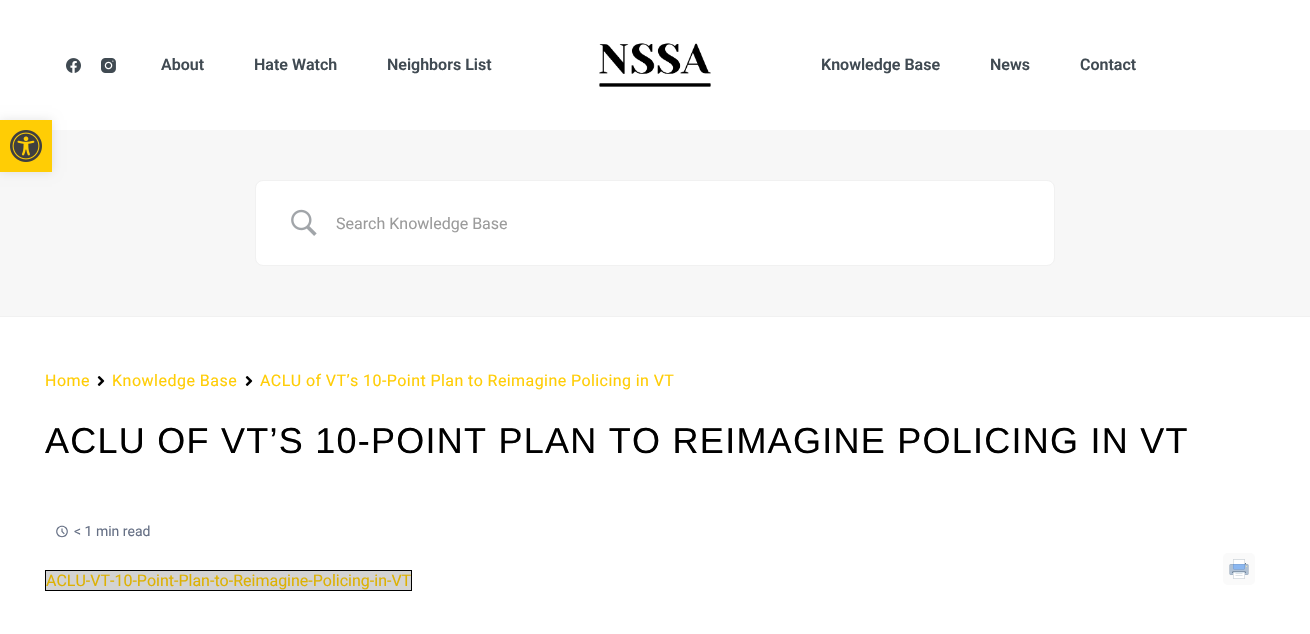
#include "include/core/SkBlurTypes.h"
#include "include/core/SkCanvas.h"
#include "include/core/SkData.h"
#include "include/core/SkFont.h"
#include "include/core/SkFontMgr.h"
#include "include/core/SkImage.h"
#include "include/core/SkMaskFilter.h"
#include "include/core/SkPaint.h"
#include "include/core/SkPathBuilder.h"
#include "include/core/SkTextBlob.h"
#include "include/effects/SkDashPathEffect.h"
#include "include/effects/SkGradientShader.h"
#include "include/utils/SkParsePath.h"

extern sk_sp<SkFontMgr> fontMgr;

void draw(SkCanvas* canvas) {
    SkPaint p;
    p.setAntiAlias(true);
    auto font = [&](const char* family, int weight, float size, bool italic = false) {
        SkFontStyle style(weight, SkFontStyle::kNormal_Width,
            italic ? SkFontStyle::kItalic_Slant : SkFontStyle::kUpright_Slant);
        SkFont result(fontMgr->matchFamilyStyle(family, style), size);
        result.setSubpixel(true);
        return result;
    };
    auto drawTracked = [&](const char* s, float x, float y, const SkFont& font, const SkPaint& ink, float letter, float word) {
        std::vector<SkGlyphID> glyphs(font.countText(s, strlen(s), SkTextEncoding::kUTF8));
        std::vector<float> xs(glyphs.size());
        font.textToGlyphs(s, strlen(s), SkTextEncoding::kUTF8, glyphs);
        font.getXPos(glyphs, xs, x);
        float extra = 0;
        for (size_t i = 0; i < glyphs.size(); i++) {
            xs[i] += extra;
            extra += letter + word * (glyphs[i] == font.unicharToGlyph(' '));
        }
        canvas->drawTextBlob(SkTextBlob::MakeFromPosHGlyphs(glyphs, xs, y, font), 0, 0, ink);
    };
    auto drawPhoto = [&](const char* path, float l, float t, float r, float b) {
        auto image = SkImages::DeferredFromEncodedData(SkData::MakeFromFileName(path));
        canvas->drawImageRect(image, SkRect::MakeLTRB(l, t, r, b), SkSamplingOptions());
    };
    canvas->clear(0xFFFFFFFF);
    p.setColor(0xFFF7F7F7);
    canvas->drawRect(SkRect::MakeLTRB(0, 130, 1310, 316), p);
    p.setColor(0x1A000000);
    p.setMaskFilter(SkMaskFilter::MakeBlur(kNormal_SkBlurStyle, 5));
    canvas->drawRect(SkRect::MakeLTRB(0, 120, 52, 172), p);
    p.setMaskFilter(nullptr);
    p.setColor(0xFFFFCD05);
    canvas->drawRect(SkRect::MakeLTRB(0, 120, 52, 172), p);
    drawPhoto("media/1.png", 10, 130, 42, 162);
    drawPhoto("media/2.png", 66, 58, 81, 73);
    drawPhoto("media/3.png", 101, 58, 116, 73);
    auto font1 = font("Roboto", 600, 16);
    p.setColor(0xFF404A52);
    {
        const struct { const char* s; float x, y; } items[] = {
            {"About", 161, 70},
            {"Hate Watch", 254, 70},
            {"Neighbors List", 387, 70},
        };
        for (auto [s, x, y] : items) {
            canvas->drawString(s, x, y, font1, p);
        }
    }
    drawPhoto("media/4.png", 599, 43, 711, 87);
    {
        const struct { const char* s; float x, y; } items[] = {
            {"Knowledge Base", 821, 70},
            {"News", 990, 70},
            {"Contact", 1080, 70},
        };
        for (auto [s, x, y] : items) {
            canvas->drawString(s, x, y, font1, p);
        }
    }
    p.setColor(0xFFF1F1F1);
    canvas->drawRect(SkRect::MakeLTRB(0, 316, 1310, 317), p);
    p.setColor(0xFFFFFFFF);
    canvas->drawRoundRect(SkRect::MakeLTRB(255.5f, 180.5f, 1054.5f, 265.5f), 7.5f, 7.5f, p);
    p.setStyle(SkPaint::kStroke_Style);
    p.setStrokeWidth(1);
    p.setColor(0xFFF1F1F1);
    canvas->drawRoundRect(SkRect::MakeLTRB(255.5f, 180.5f, 1054.5f, 265.5f), 7.5f, 7.5f, p);
    drawPhoto("media/5.png", 291, 209, 317, 236);
    auto font2 = font("Roboto", 400, 16);
    p.setStyle(SkPaint::kFill_Style);
    p.setColor(0xFF9B9B9B);
    canvas->drawString("Search Knowledge Base", 336, 229, font2, p);
    p.setColor(0xFFFFCD05);
    drawTracked("Home", 45, 386, font2, p, 0.5f, 0);
    drawPhoto("media/6.png", 97, 376, 105, 386);
    drawTracked("Knowledge Base", 112, 386, font2, p, 0.5f, 0);
    drawPhoto("media/6.png", 245, 376, 253, 386);
    drawTracked("ACLU of VT’s 10-Point Plan to Reimagine Policing in VT", 260, 386, font2, p, 0.42f, 0);
    auto font3 = font("Liberation Sans", 400, 36);
    p.setColor(0xFF000000);
    drawTracked("ACLU OF VT’S 10-POINT PLAN TO REIMAGINE POLICING IN VT", 45, 453, font3, p, 1.25f, 0);
    drawPhoto("media/7.png", 56, 525, 68, 538);
    auto font4 = font("Roboto", 400, 14);
    p.setColor(0xFF667085);
    canvas->drawString("< 1 min read", 74, 536, font4, p);
    p.setColor(0xFFD3D3D3);
    canvas->drawRect(SkRect::MakeLTRB(45.5f, 570.5f, 411.5f, 590.5f), p);
    p.setStyle(SkPaint::kStroke_Style);
    p.setColor(0xFF000000);
    canvas->drawRect(SkRect::MakeLTRB(45.5f, 570.5f, 411.5f, 590.5f), p);
    p.setStyle(SkPaint::kFill_Style);
    p.setColor(0xFFDDB102);
    canvas->drawString("ACLU-VT-10-Point-Plan-to-Reimagine-Policing-in-VT", 46, 586, font2, p);
    p.setColor(0xFFFAFAFA);
    canvas->drawRoundRect(SkRect::MakeLTRB(1223, 553, 1255, 585), 5, 5, p);
    drawPhoto("media/8.png", 1229, 559, 1249, 579);
}
